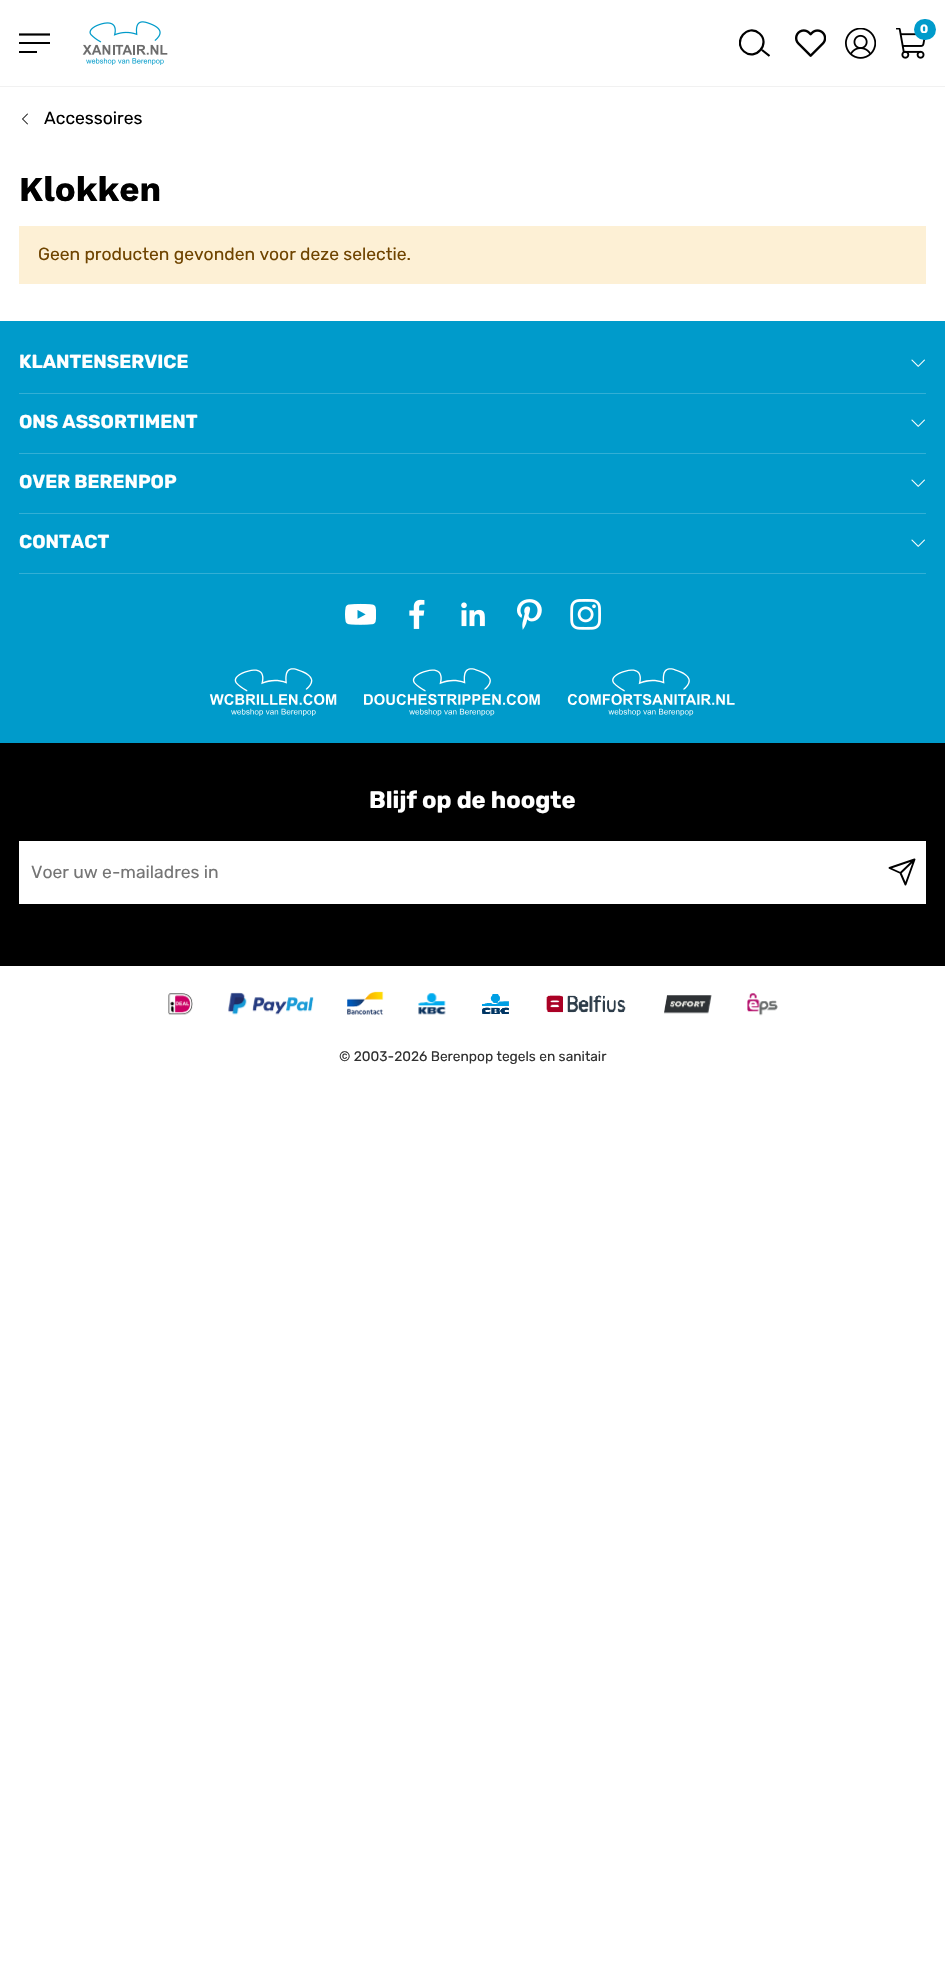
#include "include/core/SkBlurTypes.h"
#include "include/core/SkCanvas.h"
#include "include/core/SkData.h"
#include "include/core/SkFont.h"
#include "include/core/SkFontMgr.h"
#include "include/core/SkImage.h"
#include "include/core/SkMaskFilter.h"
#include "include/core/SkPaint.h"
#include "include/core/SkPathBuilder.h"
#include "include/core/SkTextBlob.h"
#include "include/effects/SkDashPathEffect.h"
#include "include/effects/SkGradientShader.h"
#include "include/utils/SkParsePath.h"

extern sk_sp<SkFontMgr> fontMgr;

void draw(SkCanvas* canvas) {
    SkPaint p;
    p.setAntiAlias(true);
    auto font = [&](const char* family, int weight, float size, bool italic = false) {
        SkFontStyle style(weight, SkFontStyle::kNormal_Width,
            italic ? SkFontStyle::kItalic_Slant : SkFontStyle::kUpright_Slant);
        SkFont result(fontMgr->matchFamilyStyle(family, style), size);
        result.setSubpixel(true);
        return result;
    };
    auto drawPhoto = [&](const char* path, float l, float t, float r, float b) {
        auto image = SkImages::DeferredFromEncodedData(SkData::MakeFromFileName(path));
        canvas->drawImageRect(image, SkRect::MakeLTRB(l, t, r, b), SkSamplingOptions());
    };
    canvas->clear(0xFFFFFFFF);
    p.setColor(0xFFF1F1F1);
    canvas->drawRect(SkRect::MakeLTRB(0, 86, 945, 87), p);
    p.setStyle(SkPaint::kStroke_Style);
    p.setStrokeWidth(2.2f);
    p.setColor(0xFF000000);
    canvas->drawPath(SkPathBuilder().moveTo(19, 34.5f).lineTo(50, 34.5f).detach(), p);
    p.setStyle(SkPaint::kFill_Style);
    canvas->drawRect(SkRect::MakeLTRB(19, 42, 50, 44), p);
    canvas->drawRect(SkRect::MakeLTRB(19, 51, 37, 53), p);
    drawPhoto("media/1.png", 82, 21, 168, 65);
    canvas->save();
    canvas->clipRect(SkRect::MakeLTRB(739, 28, 770, 59));
    p.setStyle(SkPaint::kStroke_Style);
    canvas->drawPath(SkPathBuilder().moveTo(762, 50).lineTo(769.5f, 56).moveTo(759.5f, 33.5f).cubicTo(771, 43.5f, 755.5f, 61.5f, 744, 51.5f).cubicTo(732.5f, 41.5f, 747.5f, 23, 759.5f, 33.5f).close().detach(), p);
    canvas->restore();
    drawPhoto("media/2.png", 795, 29, 826, 57);
    drawPhoto("media/3.png", 845, 28, 876, 59);
    drawPhoto("media/4.png", 896, 28, 926, 59);
    p.setStyle(SkPaint::kFill_Style);
    p.setColor(0xFF009BCB);
    canvas->drawRoundRect(SkRect::MakeLTRB(914, 19, 936, 40), 10.5f, 10.5f, p);
    auto font1 = font("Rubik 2", 300, 12);
    p.setColor(0xFFFFFFFF);
    canvas->drawString("0", 920, 33, font1, p);
    drawPhoto("media/5.png", 22, 113, 28, 125);
    auto font2 = font("Rubik", 300, 17.5f);
    p.setColor(0xFF000000);
    canvas->drawString("Accessoires", 44, 124, font2, p);
    auto font3 = font("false", 700, 35);
    canvas->drawString("Klokken", 19, 201, font3, p);
    p.setColor(0xFFFDF0D5);
    canvas->drawRect(SkRect::MakeLTRB(19, 226, 926, 284), p);
    p.setColor(0xFF6F4400);
    canvas->drawString("Geen producten gevonden voor deze selectie.", 38, 260, font2, p);
    p.setColor(0xFF009BCB);
    canvas->drawRect(SkRect::MakeLTRB(0, 321, 945, 743), p);
    p.setColor(0xFF33AFD5);
    canvas->drawRect(SkRect::MakeLTRB(19, 393, 926, 394), p);
    auto font4 = font("Rubik 2", 300, 18.75f);
    p.setColor(0xFFFFFFFF);
    canvas->drawString("KLANTENSERVICE", 19, 368, font4, p);
    drawPhoto("media/6.png", 911, 359, 925, 367);
    p.setColor(0xFF33AFD5);
    canvas->drawRect(SkRect::MakeLTRB(19, 453, 926, 454), p);
    p.setColor(0xFFFFFFFF);
    canvas->drawString("ONS ASSORTIMENT", 19, 428, font4, p);
    drawPhoto("media/6.png", 911, 419, 925, 427);
    p.setColor(0xFF33AFD5);
    canvas->drawRect(SkRect::MakeLTRB(19, 513, 926, 514), p);
    p.setColor(0xFFFFFFFF);
    canvas->drawString("OVER BERENPOP", 19, 488, font4, p);
    drawPhoto("media/6.png", 911, 479, 925, 487);
    p.setColor(0xFF33AFD5);
    canvas->drawRect(SkRect::MakeLTRB(19, 573, 926, 574), p);
    p.setColor(0xFFFFFFFF);
    canvas->drawString("CONTACT", 19, 548, font4, p);
    drawPhoto("media/6.png", 911, 539, 925, 547);
    drawPhoto("media/7.png", 345, 603, 376, 625);
    drawPhoto("media/8.png", 409, 599, 425, 629);
    drawPhoto("media/9.png", 461, 602, 485, 627);
    drawPhoto("media/10.png", 517, 599, 542, 630);
    drawPhoto("media/11.png", 570, 599, 601, 630);
    drawPhoto("media/12.png", 209, 668, 337, 716);
    drawPhoto("media/13.png", 364, 668, 540, 716);
    drawPhoto("media/14.png", 567, 668, 735, 716);
    p.setColor(0xFF000000);
    canvas->drawRect(SkRect::MakeLTRB(0, 743, 945, 966), p);
    auto font5 = font("Rubik 2", 300, 23.75f);
    p.setColor(0xFFFFFFFF);
    canvas->drawString("Blijf op de hoogte", 369, 808, font5, p);
    canvas->drawRect(SkRect::MakeLTRB(19, 841, 926, 904), p);
    p.setColor(0xFF757575);
    canvas->drawString("Voer uw e-mailadres in", 31, 878, font2, p);
    p.setStyle(SkPaint::kStroke_Style);
    p.setStrokeWidth(1.9f);
    p.setStrokeCap(SkPaint::kRound_Cap);
    p.setStrokeJoin(SkPaint::kRound_Join);
    p.setColor(0xFF000000);
    canvas->drawPath(SkPathBuilder().moveTo(914.5f, 859.5f).lineTo(900.5f, 873).moveTo(914.5f, 859.5f).lineTo(905.5f, 884.5f).lineTo(900.5f, 873).lineTo(889.5f, 868).close().detach(), p);
    drawPhoto("media/15.png", 168, 993, 193, 1015);
    drawPhoto("media/16.png", 228, 992, 314, 1015);
    drawPhoto("media/17.png", 347, 991, 384, 1015);
    drawPhoto("media/18.png", 418, 993, 446, 1015);
    drawPhoto("media/19.png", 482, 994, 509, 1014);
    drawPhoto("media/20.png", 546, 995, 626, 1013);
    drawPhoto("media/21.png", 664, 995, 712, 1014);
    drawPhoto("media/22.png", 747, 993, 778, 1016);
    auto font6 = font("Rubik", 300, 13.75f);
    p.setStyle(SkPaint::kFill_Style);
    p.setColor(0xFF313131);
    canvas->drawString("© 2003-2026 Berenpop tegels en sanitair", 339, 1061, font6, p);
}
